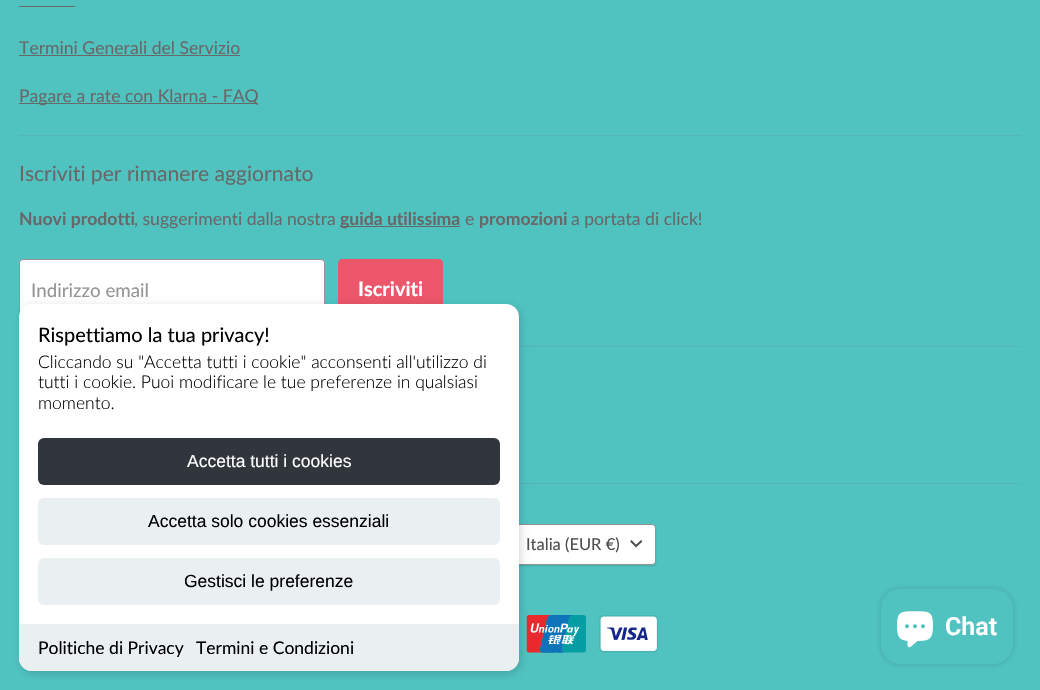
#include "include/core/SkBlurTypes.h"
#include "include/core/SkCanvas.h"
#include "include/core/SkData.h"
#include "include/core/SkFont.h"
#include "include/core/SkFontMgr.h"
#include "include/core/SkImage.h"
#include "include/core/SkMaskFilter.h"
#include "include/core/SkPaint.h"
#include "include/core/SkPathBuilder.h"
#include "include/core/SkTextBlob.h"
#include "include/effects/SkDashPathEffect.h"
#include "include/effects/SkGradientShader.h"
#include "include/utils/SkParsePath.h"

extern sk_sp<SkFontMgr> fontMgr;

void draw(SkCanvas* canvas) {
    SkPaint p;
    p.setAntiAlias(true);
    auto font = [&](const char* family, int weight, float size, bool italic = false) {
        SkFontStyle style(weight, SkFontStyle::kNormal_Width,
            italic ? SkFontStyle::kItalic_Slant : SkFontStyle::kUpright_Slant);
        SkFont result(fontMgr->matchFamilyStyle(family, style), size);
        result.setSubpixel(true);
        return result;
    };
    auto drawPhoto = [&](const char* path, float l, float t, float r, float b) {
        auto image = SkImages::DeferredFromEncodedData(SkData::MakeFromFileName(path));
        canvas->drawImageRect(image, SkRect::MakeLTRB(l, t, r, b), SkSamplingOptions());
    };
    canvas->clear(0xFF50C3C1);
    p.setColor(0xFF54B5B4);
    canvas->drawRect(SkRect::MakeLTRB(19, 135, 1021, 136), p);
    p.setColor(0xFF686868);
    canvas->drawRect(SkRect::MakeLTRB(19, 6, 75, 7), p);
    auto font1 = font("Lato", 400, 17.6f);
    canvas->drawString("Termini Generali del Servizio", 19, 54, font1, p);
    canvas->drawRect(SkRect::MakeLTRB(19, 55, 240, 56), p);
    canvas->drawRect(SkRect::MakeLTRB(19, 103, 258, 104), p);
    canvas->drawString("Pagare a rate con Klarna - FAQ", 19, 102, font1, p);
    p.setColor(0xFF54B5B4);
    canvas->drawRect(SkRect::MakeLTRB(519, 346, 1021, 347), p);
    auto font2 = font("Lato", 400, 21.1f);
    p.setColor(0xFF686868);
    canvas->drawString("Iscriviti per rimanere aggiornato", 19, 181, font2, p);
    auto font3 = font("Lato", 700, 17.6f);
    canvas->drawString("Nuovi prodotti", 19, 225, font3, p);
    canvas->drawString(", suggerimenti dalla nostra", 134, 225, font1, p);
    canvas->drawRect(SkRect::MakeLTRB(340, 226, 460, 227), p);
    canvas->drawString("guida utilissima", 340, 225, font3, p);
    canvas->drawString("e", 465, 225, font1, p);
    canvas->drawString("promozioni", 479, 225, font3, p);
    canvas->drawString("a portata di click!", 571, 225, font1, p);
    p.setColor(0xFFFFFFFF);
    canvas->drawRoundRect(SkRect::MakeLTRB(19.5f, 259.5f, 324.5f, 320.5f), 3.5f, 3.5f, p);
    p.setStyle(SkPaint::kStroke_Style);
    p.setStrokeWidth(1);
    p.setColor(0xFF949494);
    canvas->drawRoundRect(SkRect::MakeLTRB(19.5f, 259.5f, 324.5f, 320.5f), 3.5f, 3.5f, p);
    auto font4 = font("Lato", 400, 18.75f);
    p.setStyle(SkPaint::kFill_Style);
    canvas->drawString("Indirizzo email", 31, 297, font4, p);
    p.setColor(0xFFEC566B);
    canvas->drawRoundRect(SkRect::MakeLTRB(338.5f, 259.5f, 442.5f, 318.5f), 3.5f, 3.5f, p);
    p.setStyle(SkPaint::kStroke_Style);
    canvas->drawRoundRect(SkRect::MakeLTRB(338.5f, 259.5f, 442.5f, 318.5f), 3.5f, 3.5f, p);
    auto font5 = font("Lato", 700, 20);
    p.setStyle(SkPaint::kFill_Style);
    p.setColor(0xFFFFFFFF);
    canvas->drawString("Iscriviti", 358, 296, font5, p);
    p.setColor(0xFF54B5B4);
    canvas->drawRect(SkRect::MakeLTRB(519, 483, 1021, 484), p);
    p.setColor(0x26000000);
    p.setMaskFilter(SkMaskFilter::MakeBlur(kNormal_SkBlurStyle, 1));
    canvas->drawRoundRect(SkRect::MakeLTRB(513, 525, 656, 566), 4, 4, p);
    p.setMaskFilter(nullptr);
    p.setColor(0xFFFFFFFF);
    canvas->drawRoundRect(SkRect::MakeLTRB(513.5f, 524.5f, 655.5f, 564.5f), 3.5f, 3.5f, p);
    p.setStyle(SkPaint::kStroke_Style);
    p.setColor(0xFF949494);
    canvas->drawRoundRect(SkRect::MakeLTRB(513.5f, 524.5f, 655.5f, 564.5f), 3.5f, 3.5f, p);
    auto font6 = font("Lato", 400, 16.5f);
    p.setStyle(SkPaint::kFill_Style);
    p.setColor(0xFF4D4D4D);
    canvas->drawString("Italia (EUR €)", 526, 550, font6, p);
    p.setStyle(SkPaint::kStroke_Style);
    p.setStrokeWidth(2);
    p.setStrokeCap(SkPaint::kSquare_Cap);
    canvas->drawPath(SkPathBuilder().moveTo(636, 546).lineTo(641, 541.5f).moveTo(636, 546).lineTo(631.5f, 541.5f).detach(), p);
    drawPhoto("media/1.png", 526, 615, 586, 653);
    drawPhoto("media/2.png", 599, 615, 659, 653);
    p.setStyle(SkPaint::kFill_Style);
    p.setColor(0x26000000);
    p.setMaskFilter(SkMaskFilter::MakeBlur(kNormal_SkBlurStyle, 4));
    canvas->drawRoundRect(SkRect::MakeLTRB(21, 306, 521, 674), 13, 13, p);
    p.setMaskFilter(nullptr);
    p.setColor(0xFFFFFFFF);
    canvas->drawRoundRect(SkRect::MakeLTRB(19, 304, 519, 671), 13, 13, p);
    auto font7 = font("Lato", 400, 20);
    p.setColor(0xFF000000);
    canvas->drawString("Rispettiamo la tua privacy!", 38, 342, font7, p);
    auto font8 = font("Lato", 300, 17.5f);
    {
        const struct { const char* s; float x, y; } items[] = {
            {"Cliccando su \"Accetta tutti i cookie\" acconsenti all'utilizzo di", 38, 368},
            {"tutti i cookie. Puoi modificare le tue preferenze in qualsiasi", 38, 388},
            {"momento.", 38, 409},
        };
        for (auto [s, x, y] : items) {
            canvas->drawString(s, x, y, font8, p);
        }
    }
    p.setColor(0xFF30363C);
    canvas->drawRoundRect(SkRect::MakeLTRB(38, 438, 500, 485), 6, 6, p);
    auto font9 = font("Liberation Sans", 400, 17.5f);
    p.setColor(0xFFFFFFFF);
    canvas->drawString("Accetta tutti i cookies", 187, 467, font9, p);
    p.setColor(0xFFEAEFF2);
    canvas->drawRoundRect(SkRect::MakeLTRB(38, 498, 500, 545), 6, 6, p);
    p.setColor(0xFF000000);
    canvas->drawString("Accetta solo cookies essenziali", 148, 527, font9, p);
    p.setColor(0xFFEAEFF2);
    canvas->drawRoundRect(SkRect::MakeLTRB(38, 558, 500, 605), 6, 6, p);
    p.setColor(0xFF000000);
    canvas->drawString("Gestisci le preferenze", 184, 587, font9, p);
    p.setColor(0xFFEAEFF2);
    canvas->drawPath(SkPathBuilder().moveTo(19, 624).lineTo(519, 624).lineTo(519, 658).cubicTo(519, 665, 513, 671, 506, 671).lineTo(32, 671).cubicTo(25, 671, 19, 665, 19, 658).close().detach(), p);
    p.setColor(0xFFEEEEEE);
    canvas->drawRect(SkRect::MakeLTRB(19, 624, 519, 625), p);
    canvas->save();
    canvas->clipPath(SkPathBuilder().moveTo(32, 304).lineTo(506, 304).cubicTo(513, 304, 519, 310, 519, 317).lineTo(519, 658).cubicTo(519, 665, 513, 671, 506, 671).lineTo(32, 671).cubicTo(25, 671, 19, 665, 19, 658).lineTo(19, 317).cubicTo(19, 310, 25, 304, 32, 304).close().detach(), true);
    canvas->drawRect(SkRect::MakeLTRB(19, 670, 519, 671), p);
    canvas->restore();
    auto font10 = font("Lato", 400, 17.5f);
    p.setColor(0xFF000000);
    canvas->drawString("Politiche di Privacy", 38, 654, font10, p);
    canvas->drawString("Termini e Condizioni", 196, 654, font10, p);
    p.setColor(0x26000000);
    p.setMaskFilter(SkMaskFilter::MakeBlur(kNormal_SkBlurStyle, 3));
    canvas->drawRoundRect(SkRect::MakeLTRB(881, 589, 1013, 664), 20, 20, p);
    p.setMaskFilter(nullptr);
    p.setColor(0xFF50C3C1);
    canvas->drawRoundRect(SkRect::MakeLTRB(881, 589, 1013, 664), 20, 20, p);
    drawPhoto("media/3.png", 897, 611, 933, 648);
    auto font11 = font("Roboto", 600, 25);
    p.setColor(0xFFFFFFFF);
    canvas->drawString("Chat", 945, 635, font11, p);
}
